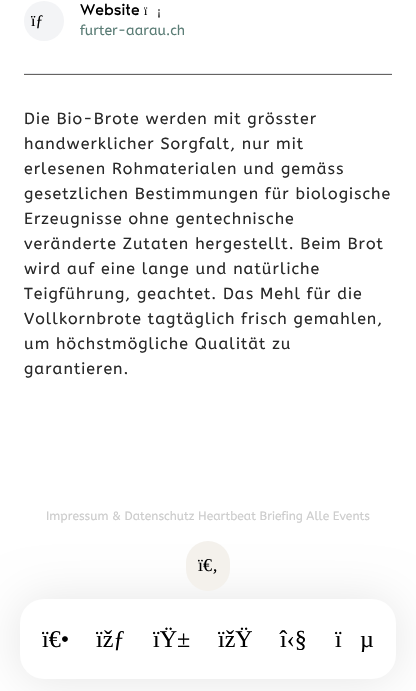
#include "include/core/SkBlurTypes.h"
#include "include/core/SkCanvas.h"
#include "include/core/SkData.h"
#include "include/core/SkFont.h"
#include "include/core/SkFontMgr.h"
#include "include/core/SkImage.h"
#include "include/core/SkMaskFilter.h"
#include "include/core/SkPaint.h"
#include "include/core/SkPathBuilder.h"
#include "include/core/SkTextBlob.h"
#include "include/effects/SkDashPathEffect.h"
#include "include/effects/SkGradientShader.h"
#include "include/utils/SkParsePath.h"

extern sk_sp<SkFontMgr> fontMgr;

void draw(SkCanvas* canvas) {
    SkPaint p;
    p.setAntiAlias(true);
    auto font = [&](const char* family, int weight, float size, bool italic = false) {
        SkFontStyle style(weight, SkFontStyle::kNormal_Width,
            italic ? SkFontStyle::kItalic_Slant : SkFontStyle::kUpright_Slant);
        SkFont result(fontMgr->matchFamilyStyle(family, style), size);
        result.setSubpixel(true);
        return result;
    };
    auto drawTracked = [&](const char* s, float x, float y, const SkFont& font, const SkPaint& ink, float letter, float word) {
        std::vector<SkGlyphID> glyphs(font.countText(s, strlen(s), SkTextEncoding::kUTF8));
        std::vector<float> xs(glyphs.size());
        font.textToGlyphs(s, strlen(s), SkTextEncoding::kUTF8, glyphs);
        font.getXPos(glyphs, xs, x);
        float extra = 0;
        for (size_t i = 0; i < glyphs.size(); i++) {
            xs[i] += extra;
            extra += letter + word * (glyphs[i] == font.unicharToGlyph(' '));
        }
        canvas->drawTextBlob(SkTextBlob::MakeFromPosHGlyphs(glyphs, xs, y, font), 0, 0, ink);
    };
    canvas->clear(0xFFFFFFFF);
    p.setColor(0xFFF3F4F6);
    canvas->drawCircle(44, 21, 20, p);
    auto font1 = font("Liberation Serif", 400, 16);
    p.setColor(0xFF000000);
    canvas->drawString("ïƒ", 31, 26, font1, p);
    auto font2 = font("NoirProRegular", 400, 16);
    canvas->drawString("Website", 80, 15, font2, p);
    auto font3 = font("Liberation Serif", 400, 12);
    canvas->drawString("ï", 144, 15, font3, p);
    canvas->drawString("¡", 157, 15, font3, p);
    auto font4 = font("ABeeZee", 400, 14);
    p.setColor(0xFF5B7D76);
    canvas->drawString("furter-aarau.ch", 80, 35, font4, p);
    p.setColor(0xFF666462);
    canvas->drawRect(SkRect::MakeLTRB(24, 74, 392, 75), p);
    p.setColor(0xFFE5E7EB);
    canvas->drawRect(SkRect::MakeLTRB(24, 73, 392, 74), p);
    auto font5 = font("ABeeZee", 400, 16);
    p.setColor(0xFF292929);
    {
        const struct { const char* s; float x, y; } items[] = {
            {"Die Bio-Brote werden mit grösster", 24, 124},
            {"handwerklicher Sorgfalt, nur mit", 24, 149},
            {"erlesenen Rohmaterialen und gemäss", 24, 174},
            {"gesetzlichen Bestimmungen für biologische", 24, 199},
            {"Erzeugnisse ohne gentechnische", 24, 224},
            {"veränderte Zutaten hergestellt. Beim Brot", 24, 249},
            {"wird auf eine lange und natürliche", 24, 274},
            {"Teigführung, geachtet. Das Mehl für die", 24, 299},
            {"Vollkornbrote tagtäglich frisch gemahlen,", 24, 324},
            {"um höchstmögliche Qualität zu", 24, 349},
            {"garantieren.", 24, 374},
        };
        for (auto [s, x, y] : items) {
            drawTracked(s, x, y, font5, p, 1, 0);
        }
    }
    auto font6 = font("ABeeZee", 400, 12);
    p.setColor(0xFFCCCCCC);
    canvas->drawString("Impressum & Datenschutz Heartbeat Briefing Alle Events", 46, 520, font6, p);
    p.setColor(0x1A000000);
    p.setMaskFilter(SkMaskFilter::MakeBlur(kNormal_SkBlurStyle, 23.5f));
    canvas->drawRoundRect(SkRect::MakeLTRB(20, 600, 396, 680), 24, 24, p);
    p.setMaskFilter(nullptr);
    p.setColor(0xFFF4F1EC);
    canvas->drawRoundRect(SkRect::MakeLTRB(186, 541, 230, 591), 22, 22, p);
    auto font7 = font("Liberation Serif", 400, 18);
    p.setColor(0xFF000000);
    canvas->drawString("ï€‚", 198, 571, font7, p);
    p.setColor(0xFFFFFFFF);
    canvas->drawRoundRect(SkRect::MakeLTRB(20, 599, 396, 679), 24, 24, p);
    auto font8 = font("Liberation Serif", 400, 24);
    p.setColor(0xFF000000);
    {
        const struct { const char* s; float x, y; } items[] = {
            {"ï€•", 42, 647},
            {"ïžƒ", 96, 647},
            {"ïŸ±", 153, 647},
            {"ïžŸ", 218, 647},
            {"î‹§", 280, 647},
            {"ï", 335, 647},
            {"µ", 360, 647},
        };
        for (auto [s, x, y] : items) {
            canvas->drawString(s, x, y, font8, p);
        }
    }
}
